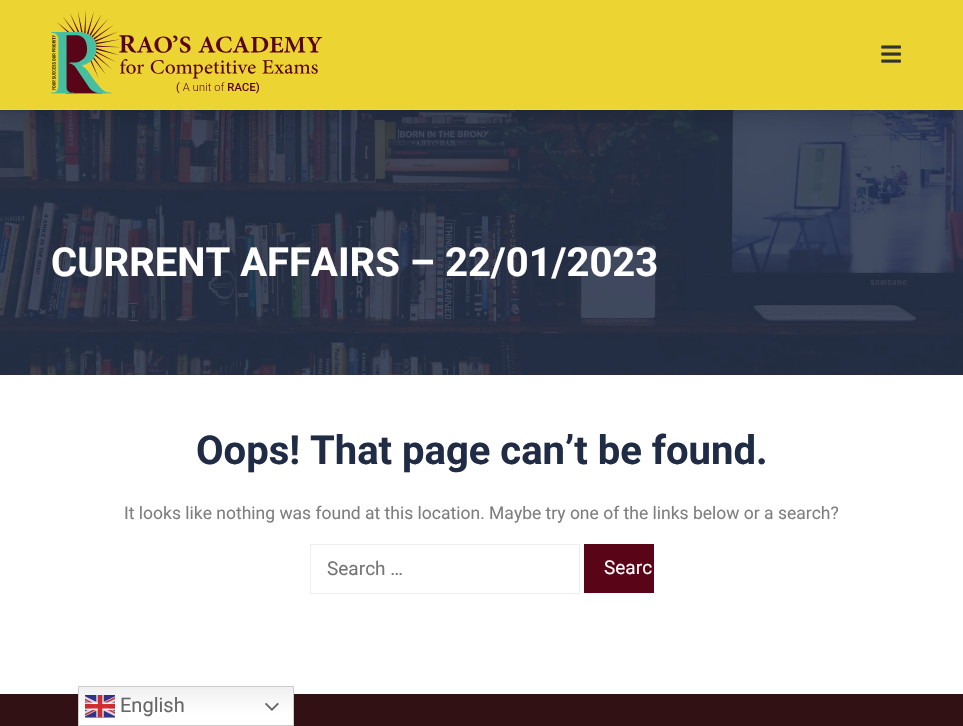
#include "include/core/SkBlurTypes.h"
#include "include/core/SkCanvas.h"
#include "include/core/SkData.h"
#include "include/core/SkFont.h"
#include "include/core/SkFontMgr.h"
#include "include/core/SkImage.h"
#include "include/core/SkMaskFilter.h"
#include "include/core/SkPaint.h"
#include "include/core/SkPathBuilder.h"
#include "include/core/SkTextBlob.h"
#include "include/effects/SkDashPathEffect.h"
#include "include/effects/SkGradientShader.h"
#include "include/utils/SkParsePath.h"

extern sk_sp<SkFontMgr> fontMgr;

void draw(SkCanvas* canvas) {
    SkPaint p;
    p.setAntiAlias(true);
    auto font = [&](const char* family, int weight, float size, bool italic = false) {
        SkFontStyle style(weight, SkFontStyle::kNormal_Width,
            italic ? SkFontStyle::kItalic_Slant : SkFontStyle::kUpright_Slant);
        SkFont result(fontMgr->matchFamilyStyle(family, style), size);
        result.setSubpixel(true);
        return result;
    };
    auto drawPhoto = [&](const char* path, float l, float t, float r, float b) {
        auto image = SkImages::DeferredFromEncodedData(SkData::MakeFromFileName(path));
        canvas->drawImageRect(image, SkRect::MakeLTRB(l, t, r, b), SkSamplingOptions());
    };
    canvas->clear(0xFFFFFFFF);
    drawPhoto("media/3.png", 0, 110, 963, 375);
    p.setColor(0x33000000);
    p.setMaskFilter(SkMaskFilter::MakeBlur(kNormal_SkBlurStyle, 12.5f));
    canvas->drawRect(SkRect::MakeLTRB(-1, -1, 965, 111), p);
    p.setMaskFilter(nullptr);
    p.setColor(0xFFECD433);
    canvas->drawRect(SkRect::MakeLTRB(0, 0, 963, 109), p);
    p.setColor(0xFFEED847);
    canvas->drawRect(SkRect::MakeLTRB(0, 109, 963, 110), p);
    drawPhoto("media/1.png", 51, 10, 323, 94);
    drawPhoto("media/2.png", 881, 45, 901, 63);
    auto font1 = font("Roboto", 700, 40);
    p.setColor(0xFFFFFFFF);
    canvas->drawString("CURRENT AFFAIRS – 22/01/2023", 51, 276, font1, p);
    p.setColor(0xFF202C45);
    canvas->drawString("Oops! That page can’t be found.", 196, 464, font1, p);
    auto font2 = font("Roboto", 400, 17.5f);
    p.setColor(0xFF7E7E7E);
    canvas->drawString("It looks like nothing was found at this location. Maybe try one of the links below or a search?", 124, 519, font2, p);
    p.setStyle(SkPaint::kStroke_Style);
    p.setStrokeWidth(1);
    p.setColor(0xFFEEEEEE);
    canvas->drawRect(SkRect::MakeLTRB(310.5f, 544.5f, 579.5f, 593.5f), p);
    auto font3 = font("Roboto", 400, 19);
    p.setStyle(SkPaint::kFill_Style);
    p.setColor(0xFF757575);
    canvas->drawString("Search …", 327, 575, font3, p);
    p.setColor(0xFF5A0517);
    canvas->drawRect(SkRect::MakeLTRB(584, 544, 654, 593), p);
    p.setColor(0xFFFFFFFF);
    canvas->drawString("Searc", 604, 574, font3, p);
    p.setColor(0xFF311113);
    canvas->drawRect(SkRect::MakeLTRB(0, 694, 963, 726), p);
    {
        const SkColor colors[] = {0xFFEFEFEF, 0xFFFFFFFF};
        const float stops[] = {0, 0.7f};
        const SkPoint ends[] = {{186, 686}, {186, 726}};
        p.setShader(SkGradientShader::MakeLinear(ends, colors, stops, 2, SkTileMode::kClamp));
        p.setAlpha(255);
    }
    canvas->drawRect(SkRect::MakeLTRB(79, 687, 293, 725), p);
    p.setStyle(SkPaint::kStroke_Style);
    p.setShader(nullptr);
    p.setColor(0xFFCCCCCC);
    canvas->drawRect(SkRect::MakeLTRB(78.5f, 686.5f, 293.5f, 725.5f), p);
    drawPhoto("media/4.png", 85, 695, 115, 718);
    auto font4 = font("Roboto", 400, 20);
    p.setStyle(SkPaint::kFill_Style);
    p.setColor(0xFF666666);
    canvas->drawString("English", 120, 712, font4, p);
    drawPhoto("media/5.png", 265, 702, 279, 711);
}
